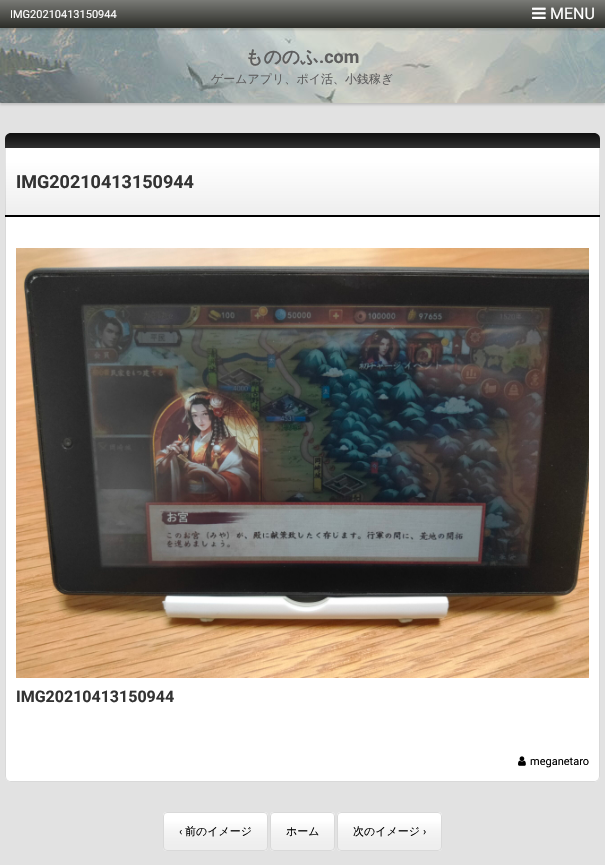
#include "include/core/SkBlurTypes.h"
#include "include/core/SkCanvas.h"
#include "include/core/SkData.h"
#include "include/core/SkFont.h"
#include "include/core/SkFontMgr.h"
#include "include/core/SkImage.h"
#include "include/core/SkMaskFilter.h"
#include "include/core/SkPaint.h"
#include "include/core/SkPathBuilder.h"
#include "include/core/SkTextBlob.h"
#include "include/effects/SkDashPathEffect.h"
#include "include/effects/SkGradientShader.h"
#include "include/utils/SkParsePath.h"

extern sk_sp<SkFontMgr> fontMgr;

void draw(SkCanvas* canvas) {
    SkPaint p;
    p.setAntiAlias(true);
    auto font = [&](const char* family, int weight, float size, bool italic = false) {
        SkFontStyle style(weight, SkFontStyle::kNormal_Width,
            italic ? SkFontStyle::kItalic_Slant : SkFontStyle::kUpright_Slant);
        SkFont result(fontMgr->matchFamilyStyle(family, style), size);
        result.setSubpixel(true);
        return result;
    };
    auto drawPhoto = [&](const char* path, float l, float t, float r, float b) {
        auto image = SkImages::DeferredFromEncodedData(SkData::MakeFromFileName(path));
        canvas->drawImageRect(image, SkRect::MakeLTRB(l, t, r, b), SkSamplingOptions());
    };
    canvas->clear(0xFFE2E2E2);
    p.setColor(0x26000000);
    p.setMaskFilter(SkMaskFilter::MakeBlur(kNormal_SkBlurStyle, 1));
    canvas->drawRect(SkRect::MakeLTRB(0, 2, 605, 105), p);
    p.setMaskFilter(nullptr);
    drawPhoto("media/2.png", 0, 28, 605, 103);
    p.setMaskFilter(SkMaskFilter::MakeBlur(kNormal_SkBlurStyle, 1));
    canvas->drawRect(SkRect::MakeLTRB(0, 2, 605, 30), p);
    p.setMaskFilter(nullptr);
    {
        const SkColor colors[] = {0xFF797A76, 0xFF2C2D28};
        const float stops[] = {0, 1};
        const SkPoint ends[] = {{303, 0}, {303, 28}};
        p.setShader(SkGradientShader::MakeLinear(ends, colors, stops, 2, SkTileMode::kClamp));
        p.setAlpha(255);
    }
    canvas->drawRect(SkRect::MakeLTRB(0, 0, 605, 28), p);
    auto font1 = font("Roboto", 400, 11);
    p.setShader(nullptr);
    p.setColor(0xFFFFFFFF);
    canvas->drawString("IMG20210413150944", 10, 18, font1, p);
    drawPhoto("media/1.png", 532, 7, 546, 19);
    auto font2 = font("Roboto", 400, 16);
    canvas->drawString("MENU", 550, 19, font2, p);
    auto font3 = font("WenQuanYi Zen Hei", 700, 18);
    p.setColor(0xFF5E5E5E);
    canvas->drawString("もののふ", 245, 63, font3, p);
    auto font4 = font("Roboto", 700, 18);
    canvas->drawString(".com", 319, 63, font4, p);
    auto font5 = font("WenQuanYi Zen Hei", 500, 12);
    canvas->drawString("ゲームアプリ、ポイ活、小銭稼ぎ", 211, 83, font5, p);
    p.setColor(0xFFFFFFFF);
    canvas->drawRoundRect(SkRect::MakeLTRB(5, 133, 600, 782), 6, 6, p);
    p.setColor(0xFF000000);
    canvas->drawPath(SkPathBuilder().moveTo(11, 133).lineTo(594, 133).cubicTo(597.5f, 133, 600, 135.5f, 600, 139).lineTo(600, 217).lineTo(5, 217).lineTo(5, 139).cubicTo(5, 135.5f, 7.5f, 133, 11, 133).close().detach(), p);
    {
        const SkColor colors[] = {0x1A999999, 0x4DFFFFFF, 0x66FFFFFF, 0x66FFFFFF, 0x4DFFFFFF, 0x1A999999};
        const float stops[] = {0, 0.3f, 0.45f, 0.55f, 0.7f, 1};
        const SkPoint ends[] = {{303, 133}, {303, 215}};
        p.setShader(SkGradientShader::MakeLinear(ends, colors, stops, 6, SkTileMode::kClamp));
        p.setAlpha(255);
    }
    canvas->drawPath(SkPathBuilder().moveTo(11, 133).lineTo(594, 133).cubicTo(597.5f, 133, 600, 135.5f, 600, 139).lineTo(600, 215).lineTo(5, 215).lineTo(5, 139).cubicTo(5, 135.5f, 7.5f, 133, 11, 133).close().detach(), p);
    {
        const SkColor colors[] = {0xFFFFFFFF, 0xFFEEEEEE};
        const float stops[] = {0.2f, 1};
        const SkPoint ends[] = {{303, 148}, {303, 215}};
        p.setShader(SkGradientShader::MakeLinear(ends, colors, stops, 2, SkTileMode::kClamp));
        p.setAlpha(255);
    }
    canvas->drawRect(SkRect::MakeLTRB(5, 148, 600, 215), p);
    p.setShader(nullptr);
    p.setColor(0x1A000000);
    canvas->drawRect(SkRect::MakeLTRB(599, 148, 600, 215), p);
    canvas->drawRect(SkRect::MakeLTRB(5, 148, 6, 215), p);
    p.setColor(0xFF333333);
    canvas->drawString("IMG20210413150944", 16, 188, font4, p);
    p.setColor(0xFFD9D9D9);
    canvas->drawPath(SkPathBuilder(SkPathFillType::kEvenOdd).moveTo(5, 217).lineTo(600, 217).lineTo(600, 776).cubicTo(600, 779, 597, 782, 594, 782).lineTo(11, 782).cubicTo(8, 782, 5, 779, 5, 776).close().moveTo(6, 217).lineTo(599, 217).lineTo(599, 776).cubicTo(599, 779, 597, 781, 594, 781).lineTo(11, 781).cubicTo(8, 781, 6, 779, 6, 776).close().detach(), p);
    drawPhoto("media/3.png", 16, 248, 589, 678);
    auto font6 = font("Roboto", 700, 16);
    p.setColor(0xFF333333);
    canvas->drawString("IMG20210413150944", 16, 702, font6, p);
    drawPhoto("media/4.png", 518, 756, 526, 766);
    p.setColor(0xFF000000);
    canvas->drawString("meganetaro", 530, 765, font1, p);
    p.setColor(0xFFFFFFFF);
    canvas->drawRoundRect(SkRect::MakeLTRB(163, 812, 268, 851), 4, 4, p);
    canvas->save();
    canvas->clipPath(SkPathBuilder().moveTo(167, 812).lineTo(264, 812).cubicTo(266, 812, 268, 814, 268, 816).lineTo(268, 847).cubicTo(268, 849, 266, 851, 264, 851).lineTo(167, 851).cubicTo(165, 851, 163, 849, 163, 847).lineTo(163, 816).cubicTo(163, 814, 165, 812, 167, 812).close().detach(), true);
    {
        const SkColor colors[] = {0x33FFFFFF, 0x1A555555};
        const float stops[] = {0.2f, 1};
        const SkPoint ends[] = {{216, 813}, {216, 850}};
        p.setShader(SkGradientShader::MakeLinear(ends, colors, stops, 2, SkTileMode::kClamp));
        p.setAlpha(255);
    }
    canvas->drawRect(SkRect::MakeLTRB(163, 813, 268, 850), p);
    canvas->restore();
    p.setStyle(SkPaint::kStroke_Style);
    p.setStrokeWidth(1);
    p.setShader(nullptr);
    p.setColor(0xFFD9D9D9);
    canvas->drawRoundRect(SkRect::MakeLTRB(163.5f, 812.5f, 267.5f, 850.5f), 3.5f, 3.5f, p);
    p.setStyle(SkPaint::kFill_Style);
    p.setColor(0xFF000000);
    canvas->drawString("‹", 179, 835, font1, p);
    auto font7 = font("WenQuanYi Zen Hei", 500, 11);
    canvas->drawString("前のイメージ", 185, 835, font7, p);
    p.setColor(0xFFFFFFFF);
    canvas->drawRoundRect(SkRect::MakeLTRB(270, 812, 335, 851), 4, 4, p);
    canvas->save();
    canvas->clipPath(SkPathBuilder().moveTo(274, 812).lineTo(331, 812).cubicTo(333, 812, 335, 814, 335, 816).lineTo(335, 847).cubicTo(335, 849, 333, 851, 331, 851).lineTo(274, 851).cubicTo(272, 851, 270, 849, 270, 847).lineTo(270, 816).cubicTo(270, 814, 272, 812, 274, 812).close().detach(), true);
    {
        const SkColor colors[] = {0x33FFFFFF, 0x1A555555};
        const float stops[] = {0.2f, 1};
        const SkPoint ends[] = {{303, 813}, {303, 850}};
        p.setShader(SkGradientShader::MakeLinear(ends, colors, stops, 2, SkTileMode::kClamp));
        p.setAlpha(255);
    }
    canvas->drawRect(SkRect::MakeLTRB(270, 813, 335, 850), p);
    canvas->restore();
    p.setStyle(SkPaint::kStroke_Style);
    p.setShader(nullptr);
    p.setColor(0xFFD9D9D9);
    canvas->drawRoundRect(SkRect::MakeLTRB(270.5f, 812.5f, 334.5f, 850.5f), 3.5f, 3.5f, p);
    p.setStyle(SkPaint::kFill_Style);
    p.setColor(0xFF000000);
    canvas->drawString("ホーム", 286, 835, font7, p);
    p.setColor(0xFFFFFFFF);
    canvas->drawRoundRect(SkRect::MakeLTRB(337, 812, 442, 851), 4, 4, p);
    canvas->save();
    canvas->clipPath(SkPathBuilder().moveTo(341, 812).lineTo(438, 812).cubicTo(440, 812, 442, 814, 442, 816).lineTo(442, 847).cubicTo(442, 849, 440, 851, 438, 851).lineTo(341, 851).cubicTo(339, 851, 337, 849, 337, 847).lineTo(337, 816).cubicTo(337, 814, 339, 812, 341, 812).close().detach(), true);
    {
        const SkColor colors[] = {0x33FFFFFF, 0x1A555555};
        const float stops[] = {0.2f, 1};
        const SkPoint ends[] = {{390, 813}, {390, 850}};
        p.setShader(SkGradientShader::MakeLinear(ends, colors, stops, 2, SkTileMode::kClamp));
        p.setAlpha(255);
    }
    canvas->drawRect(SkRect::MakeLTRB(337, 813, 442, 850), p);
    canvas->restore();
    p.setStyle(SkPaint::kStroke_Style);
    p.setShader(nullptr);
    p.setColor(0xFFD9D9D9);
    canvas->drawRoundRect(SkRect::MakeLTRB(337.5f, 812.5f, 441.5f, 850.5f), 3.5f, 3.5f, p);
    p.setStyle(SkPaint::kFill_Style);
    p.setColor(0xFF000000);
    canvas->drawString("次のイメージ", 353, 835, font7, p);
    canvas->drawString("›", 423, 835, font1, p);
}
